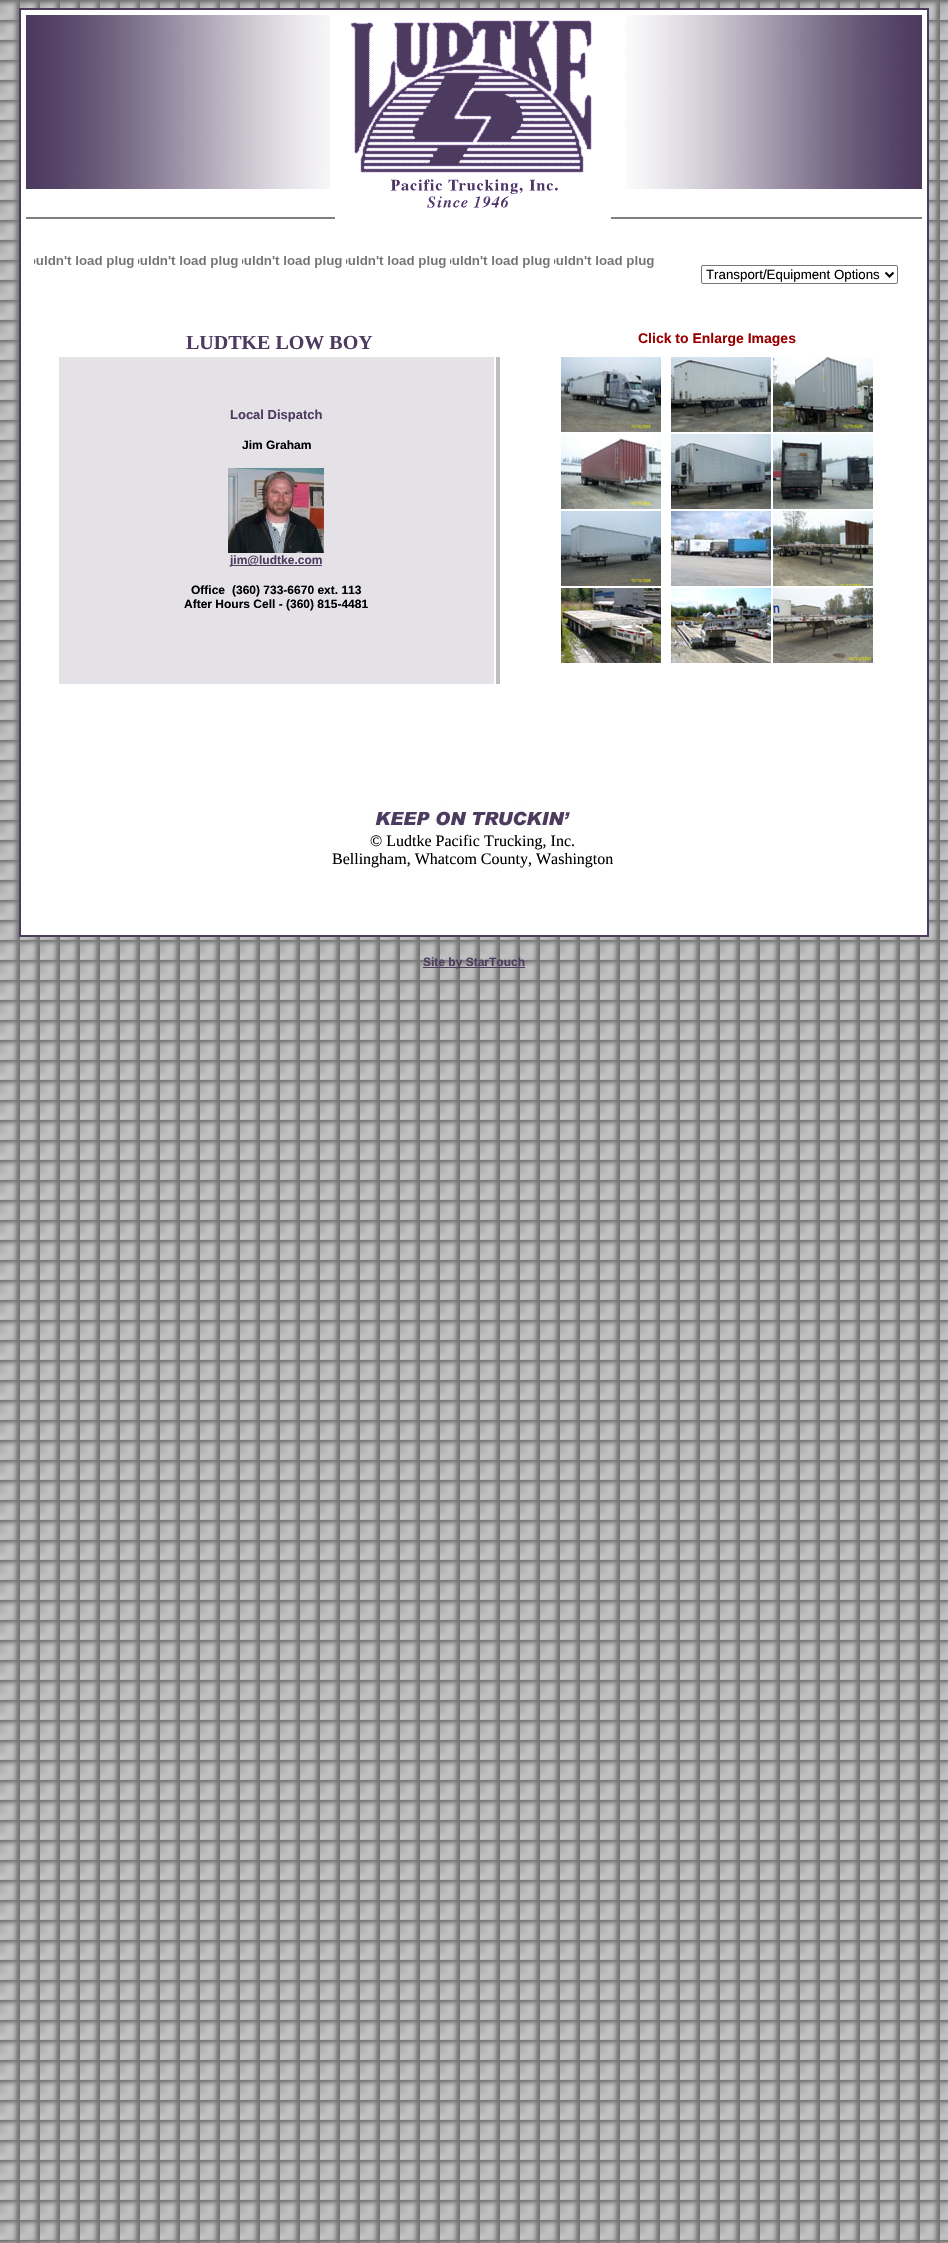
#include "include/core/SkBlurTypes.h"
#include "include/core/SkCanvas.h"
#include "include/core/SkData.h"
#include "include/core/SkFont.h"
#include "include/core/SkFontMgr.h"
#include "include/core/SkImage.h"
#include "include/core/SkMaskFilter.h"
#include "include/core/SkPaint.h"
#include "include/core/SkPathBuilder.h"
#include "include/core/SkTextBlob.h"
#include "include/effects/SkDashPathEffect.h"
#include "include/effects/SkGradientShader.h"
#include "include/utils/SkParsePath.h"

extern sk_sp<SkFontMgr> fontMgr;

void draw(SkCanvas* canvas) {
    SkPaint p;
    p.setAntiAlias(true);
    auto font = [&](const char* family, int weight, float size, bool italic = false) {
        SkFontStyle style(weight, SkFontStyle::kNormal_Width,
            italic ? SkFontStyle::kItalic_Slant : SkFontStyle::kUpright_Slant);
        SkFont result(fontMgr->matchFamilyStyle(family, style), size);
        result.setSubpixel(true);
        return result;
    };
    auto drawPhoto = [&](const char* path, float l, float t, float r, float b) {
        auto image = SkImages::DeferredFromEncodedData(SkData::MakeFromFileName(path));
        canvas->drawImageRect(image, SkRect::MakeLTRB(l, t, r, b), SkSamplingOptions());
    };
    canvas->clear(0xFFFFFFFF);
    drawPhoto("media/1.png", 0, 0, 948, 2243);
    p.setColor(0xFFFFFFFF);
    canvas->drawRect(SkRect::MakeLTRB(21, 10, 927, 935), p);
    p.setStyle(SkPaint::kStroke_Style);
    p.setStrokeWidth(1);
    p.setColor(0xFF4C3A5F);
    canvas->drawRect(SkRect::MakeLTRB(19.5f, 8.5f, 928.5f, 936.5f), p);
    canvas->drawRect(SkRect::MakeLTRB(20.5f, 9.5f, 927.5f, 935.5f), p);
    drawPhoto("media/2.png", 26, 15, 330, 189);
    drawPhoto("media/3.png", 350, 20, 592, 208);
    drawPhoto("media/4.png", 625, 15, 922, 189);
    p.setStyle(SkPaint::kFill_Style);
    p.setColor(0xFF808080);
    canvas->drawRect(SkRect::MakeLTRB(26, 217, 335, 219), p);
    canvas->drawRect(SkRect::MakeLTRB(611, 217, 922, 219), p);
    drawPhoto("media/5.png", 34, 256, 134, 268);
    drawPhoto("media/5.png", 138, 256, 238, 268);
    drawPhoto("media/5.png", 242, 256, 342, 268);
    drawPhoto("media/5.png", 346, 256, 446, 268);
    drawPhoto("media/5.png", 450, 256, 550, 268);
    drawPhoto("media/5.png", 554, 256, 654, 268);
    p.setStyle(SkPaint::kStroke_Style);
    p.setColor(0xFF767676);
    canvas->drawRoundRect(SkRect::MakeLTRB(701.5f, 265.5f, 897.5f, 283.5f), 1.5f, 1.5f, p);
    p.setStrokeWidth(2);
    p.setColor(0xFF000000);
    canvas->drawPath(SkPathBuilder().moveTo(885.5f, 272.5f).lineTo(889.5f, 276.5f).lineTo(893.5f, 272.5f).detach(), p);
    auto font1 = font("Liberation Sans", 400, 13.3f);
    p.setStyle(SkPaint::kFill_Style);
    canvas->drawString("Transport/Equipment Options", 706, 279, font1, p);
    auto font2 = font("Liberation Serif", 700, 20);
    p.setColor(0xFF4D3C60);
    canvas->drawString("LUDTKE LOW BOY", 186, 349, font2, p);
    auto font3 = font("Liberation Sans", 700, 14);
    p.setColor(0xFF990000);
    canvas->drawString("Click to Enlarge Images", 638, 343, font3, p);
    p.setColor(0xFFBEBEBE);
    canvas->drawRect(SkRect::MakeLTRB(496, 357, 500, 684), p);
    drawPhoto("media/6.png", 561, 357, 661, 432);
    drawPhoto("media/7.png", 671, 357, 771, 432);
    drawPhoto("media/8.png", 773, 357, 873, 432);
    p.setColor(0xFFE4E2E7);
    canvas->drawRect(SkRect::MakeLTRB(59, 357, 494, 684), p);
    auto font4 = font("Liberation Sans", 700, 13);
    p.setColor(0xFF4D3C60);
    canvas->drawString("Local Dispatch", 230, 419, font4, p);
    auto font5 = font("Liberation Sans", 700, 12);
    p.setColor(0xFF000000);
    canvas->drawString("Jim Graham", 242, 449, font5, p);
    drawPhoto("media/9.png", 228, 468, 324, 553);
    p.setColor(0xFF4D3C60);
    canvas->drawRect(SkRect::MakeLTRB(230, 565, 322, 566), p);
    canvas->drawString("jim@ludtke.com", 230, 564, font5, p);
    p.setColor(0xFF000000);
    {
        const struct { const char* s; float x, y; } items[] = {
            {"Office", 191, 594},
            {"(360) 733-6670 ext. 113", 232, 594},
            {"After Hours Cell - (360) 815-4481", 184, 608},
        };
        for (auto [s, x, y] : items) {
            canvas->drawString(s, x, y, font5, p);
        }
    }
    drawPhoto("media/10.png", 561, 434, 661, 509);
    drawPhoto("media/11.png", 671, 434, 771, 509);
    drawPhoto("media/12.png", 773, 434, 873, 509);
    drawPhoto("media/13.png", 561, 511, 661, 586);
    drawPhoto("media/14.png", 671, 511, 771, 586);
    drawPhoto("media/15.png", 773, 511, 873, 586);
    drawPhoto("media/16.png", 561, 588, 661, 663);
    drawPhoto("media/17.png", 671, 588, 771, 663);
    drawPhoto("media/18.png", 773, 588, 873, 663);
    drawPhoto("media/19.png", 370, 804, 570, 828);
    auto font6 = font("Liberation Serif", 400, 16);
    canvas->drawString("© Ludtke Pacific Trucking, Inc.", 370, 846, font6, p);
    canvas->drawString("Bellingham, Whatcom County, Washington", 332, 864, font6, p);
    p.setColor(0xFF4D3C60);
    canvas->drawRect(SkRect::MakeLTRB(423, 967, 525, 968), p);
    canvas->drawString("Site by StarTouch", 423, 966, font5, p);
}
